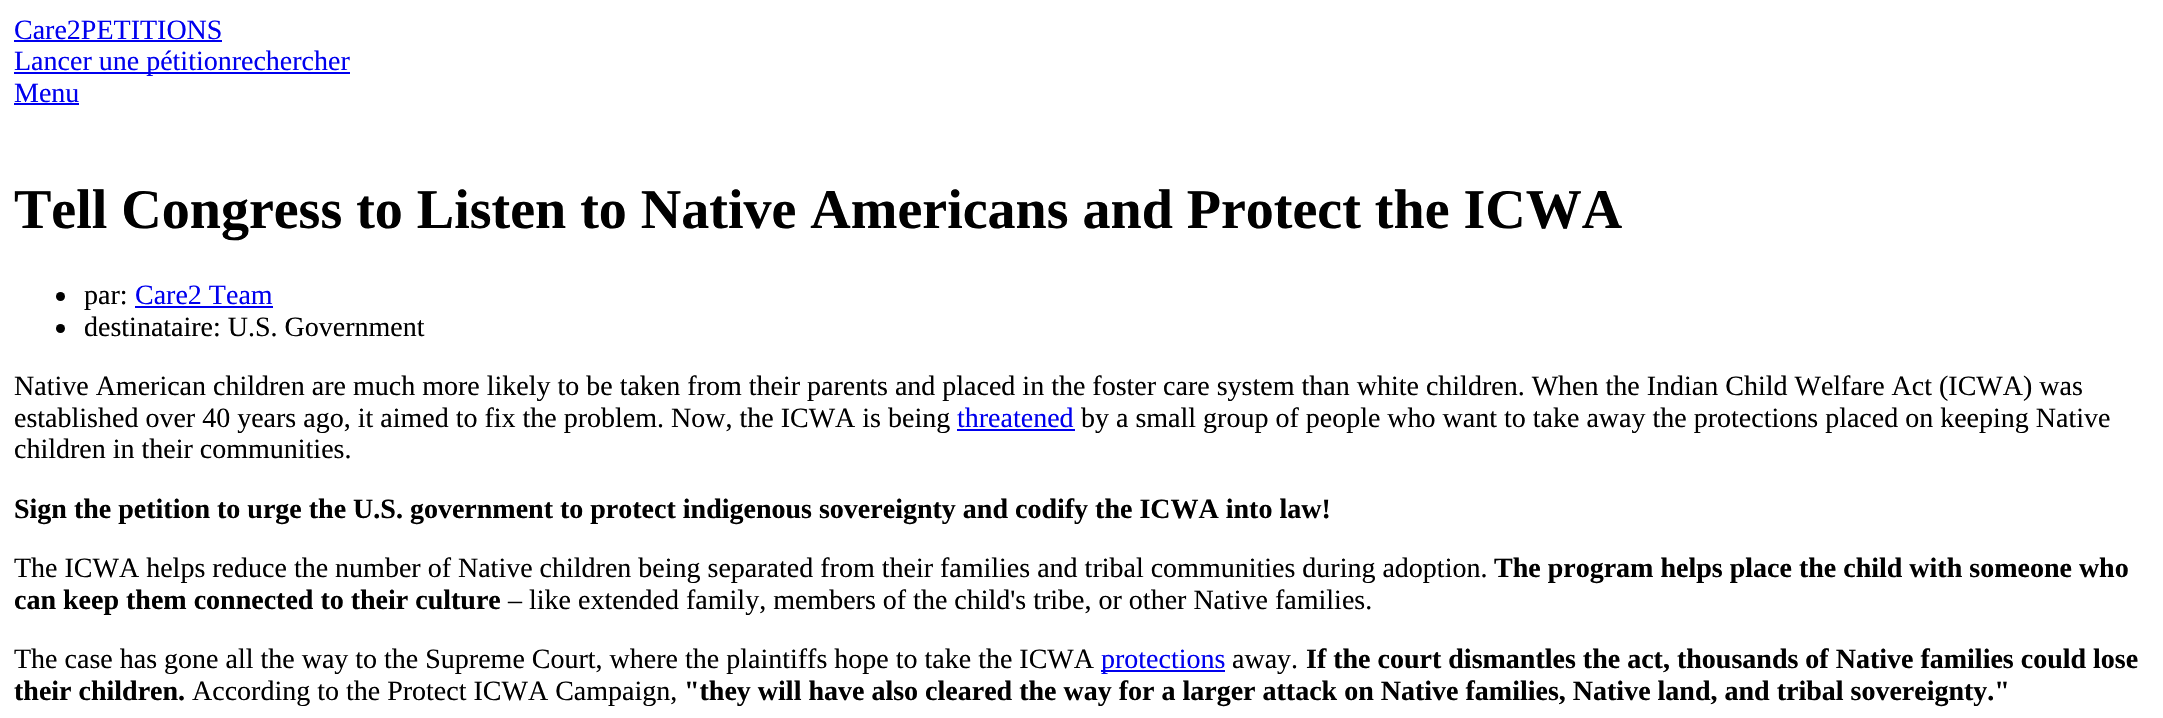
#include "include/core/SkBlurTypes.h"
#include "include/core/SkCanvas.h"
#include "include/core/SkData.h"
#include "include/core/SkFont.h"
#include "include/core/SkFontMgr.h"
#include "include/core/SkImage.h"
#include "include/core/SkMaskFilter.h"
#include "include/core/SkPaint.h"
#include "include/core/SkPathBuilder.h"
#include "include/core/SkTextBlob.h"
#include "include/effects/SkDashPathEffect.h"
#include "include/effects/SkGradientShader.h"
#include "include/utils/SkParsePath.h"

extern sk_sp<SkFontMgr> fontMgr;

void draw(SkCanvas* canvas) {
    SkPaint p;
    p.setAntiAlias(true);
    auto font = [&](const char* family, int weight, float size, bool italic = false) {
        SkFontStyle style(weight, SkFontStyle::kNormal_Width,
            italic ? SkFontStyle::kItalic_Slant : SkFontStyle::kUpright_Slant);
        SkFont result(fontMgr->matchFamilyStyle(family, style), size);
        result.setSubpixel(true);
        return result;
    };
    canvas->clear(0xFFFFFFFF);
    auto font1 = font("Liberation Serif", 400, 28);
    p.setColor(0xFF0000EE);
    canvas->drawString("Care2PETITIONS", 14, 39, font1, p);
    canvas->drawRect(SkRect::MakeLTRB(14, 40, 222, 42), p);
    canvas->drawRect(SkRect::MakeLTRB(14, 72, 231, 74), p);
    canvas->drawString("Lancer une pétitionrechercher", 14, 70, font1, p);
    canvas->drawRect(SkRect::MakeLTRB(231, 72, 350, 74), p);
    canvas->drawString("Menu", 14, 102, font1, p);
    canvas->drawRect(SkRect::MakeLTRB(14, 103, 79, 105), p);
    auto font2 = font("Liberation Serif", 700, 56);
    p.setColor(0xFF000000);
    canvas->drawString("Tell Congress to Listen to Native Americans and Protect the ICWA", 14, 228, font2, p);
    canvas->drawCircle(60.5f, 296.5f, 4.5f, p);
    canvas->drawString("par:", 84, 304, font1, p);
    p.setColor(0xFF0000EE);
    canvas->drawString("Care2 Team", 135, 304, font1, p);
    canvas->drawRect(SkRect::MakeLTRB(135, 306, 273, 308), p);
    p.setColor(0xFF000000);
    canvas->drawCircle(60.5f, 328.5f, 4.5f, p);
    {
        const struct { const char* s; float x, y; } items[] = {
            {"destinataire: U.S. Government", 84, 336},
            {"Native American children are much more likely to be taken from their parents and placed in the foster care system than white children. When the Indian Child Welfare Act (ICWA) was", 14, 395},
            {"established over 40 years ago, it aimed to fix the problem. Now, the ICWA is being", 14, 427},
        };
        for (auto [s, x, y] : items) {
            canvas->drawString(s, x, y, font1, p);
        }
    }
    p.setColor(0xFF0000EE);
    canvas->drawString("threatened", 957, 427, font1, p);
    canvas->drawRect(SkRect::MakeLTRB(957, 429, 1075, 431), p);
    p.setColor(0xFF000000);
    canvas->drawString("by a small group of people who want to take away the protections placed on keeping Native", 1081, 427, font1, p);
    canvas->drawString("children in their communities.", 14, 458, font1, p);
    auto font3 = font("Liberation Serif", 700, 28);
    canvas->drawString("Sign the petition to urge the U.S. government to protect indigenous sovereignty and codify the ICWA into law!", 14, 518, font3, p);
    canvas->drawString("The ICWA helps reduce the number of Native children being separated from their families and tribal communities during adoption.", 14, 577, font1, p);
    canvas->drawString("The program helps place the child with someone who", 1494, 577, font3, p);
    canvas->drawString("can keep them connected to their culture", 14, 609, font3, p);
    canvas->drawString("– like extended family, members of the child's tribe, or other Native families.", 508, 609, font1, p);
    canvas->drawString("The case has gone all the way to the Supreme Court, where the plaintiffs hope to take the ICWA", 14, 668, font1, p);
    p.setColor(0xFF0000EE);
    canvas->drawRect(SkRect::MakeLTRB(1101, 670, 1225, 672), p);
    canvas->drawString("protections", 1101, 668, font1, p);
    p.setColor(0xFF000000);
    canvas->drawString("away.", 1232, 668, font1, p);
    canvas->drawString("If the court dismantles the act, thousands of Native families could lose", 1306, 668, font3, p);
    canvas->drawString("their children.", 14, 700, font3, p);
    canvas->drawString("According to the Protect ICWA Campaign,", 192, 700, font1, p);
    canvas->drawString("\"they will have also cleared the way for a larger attack on Native families, Native land, and tribal sovereignty.\"", 684, 700, font3, p);
}
